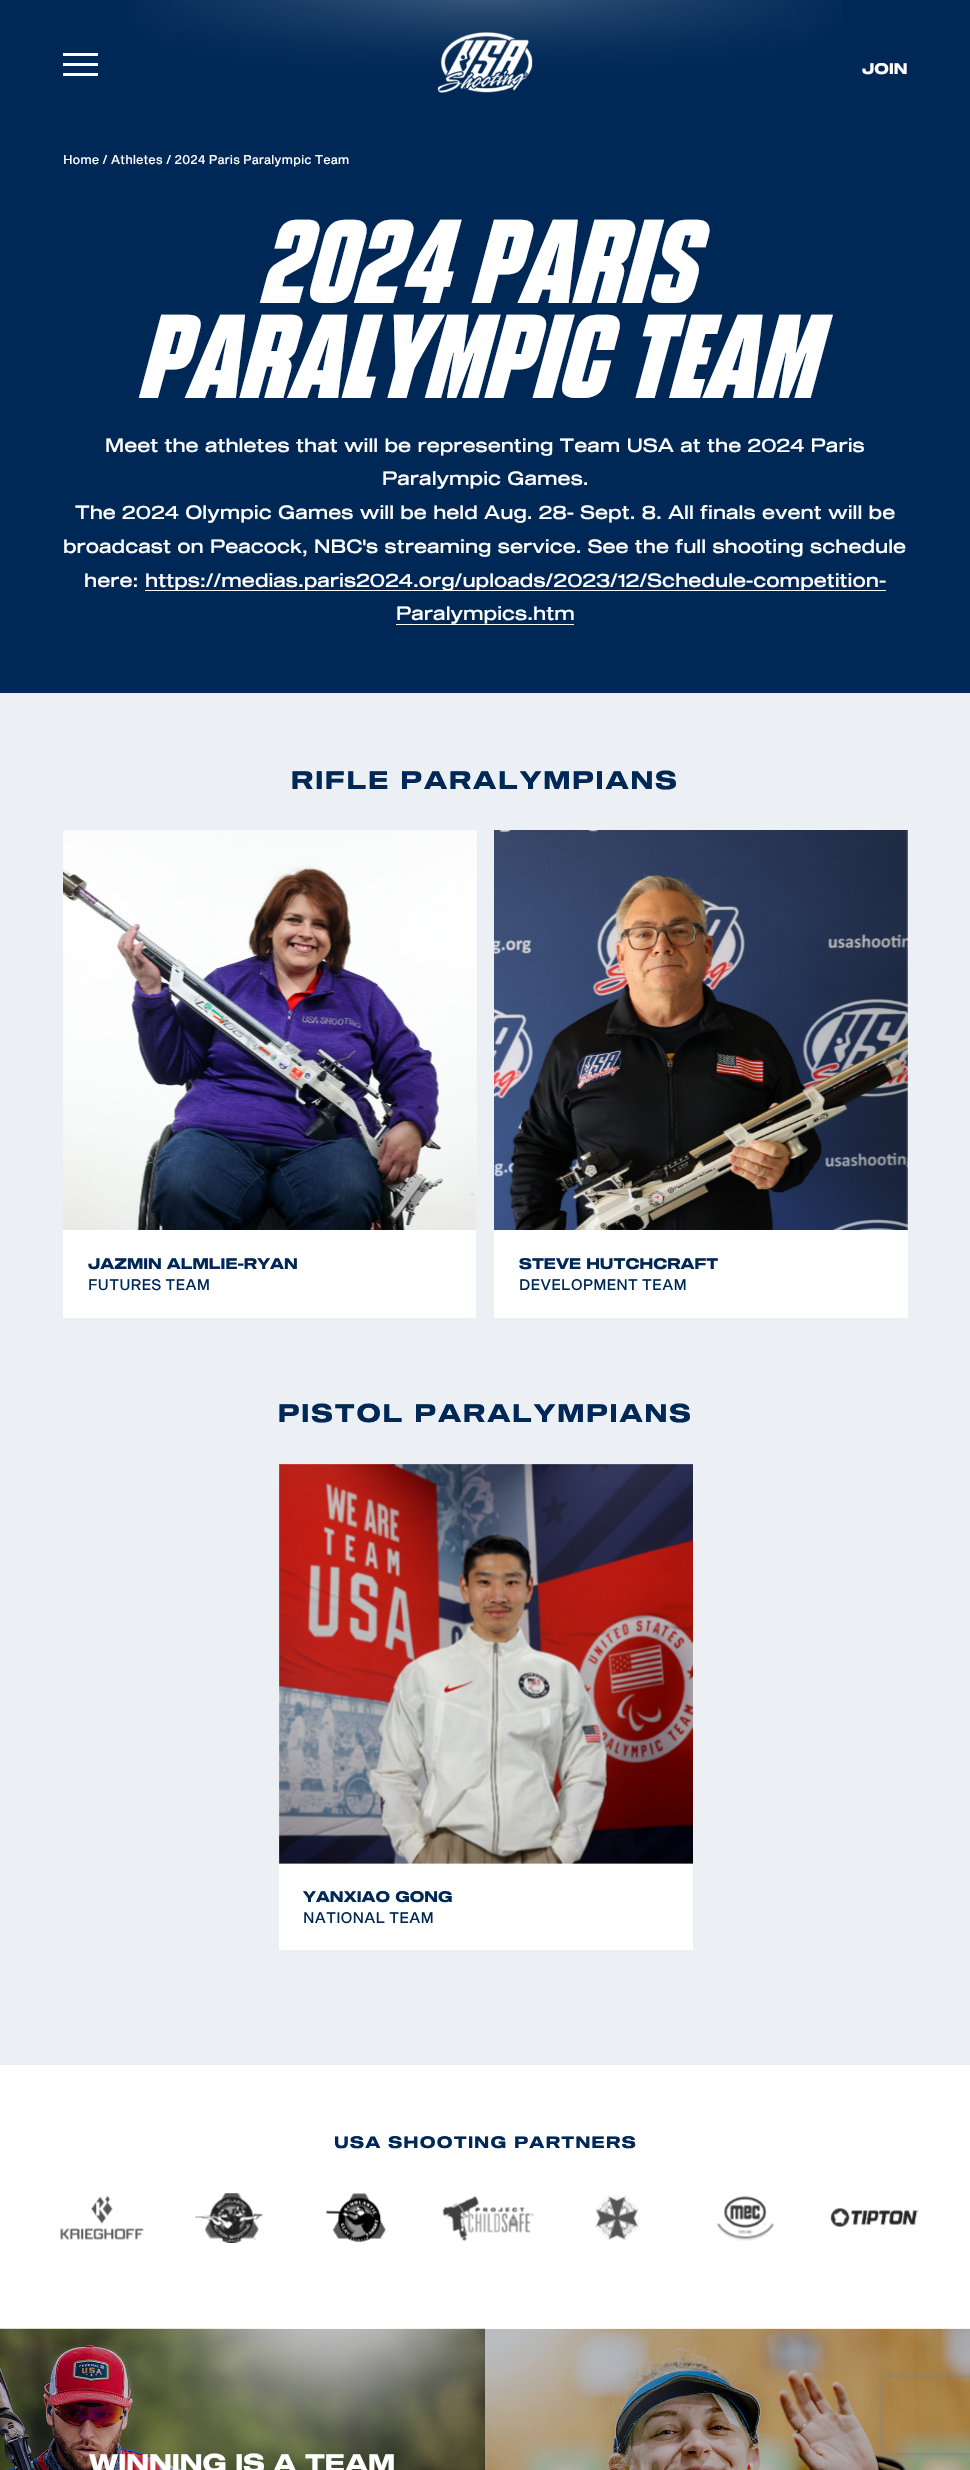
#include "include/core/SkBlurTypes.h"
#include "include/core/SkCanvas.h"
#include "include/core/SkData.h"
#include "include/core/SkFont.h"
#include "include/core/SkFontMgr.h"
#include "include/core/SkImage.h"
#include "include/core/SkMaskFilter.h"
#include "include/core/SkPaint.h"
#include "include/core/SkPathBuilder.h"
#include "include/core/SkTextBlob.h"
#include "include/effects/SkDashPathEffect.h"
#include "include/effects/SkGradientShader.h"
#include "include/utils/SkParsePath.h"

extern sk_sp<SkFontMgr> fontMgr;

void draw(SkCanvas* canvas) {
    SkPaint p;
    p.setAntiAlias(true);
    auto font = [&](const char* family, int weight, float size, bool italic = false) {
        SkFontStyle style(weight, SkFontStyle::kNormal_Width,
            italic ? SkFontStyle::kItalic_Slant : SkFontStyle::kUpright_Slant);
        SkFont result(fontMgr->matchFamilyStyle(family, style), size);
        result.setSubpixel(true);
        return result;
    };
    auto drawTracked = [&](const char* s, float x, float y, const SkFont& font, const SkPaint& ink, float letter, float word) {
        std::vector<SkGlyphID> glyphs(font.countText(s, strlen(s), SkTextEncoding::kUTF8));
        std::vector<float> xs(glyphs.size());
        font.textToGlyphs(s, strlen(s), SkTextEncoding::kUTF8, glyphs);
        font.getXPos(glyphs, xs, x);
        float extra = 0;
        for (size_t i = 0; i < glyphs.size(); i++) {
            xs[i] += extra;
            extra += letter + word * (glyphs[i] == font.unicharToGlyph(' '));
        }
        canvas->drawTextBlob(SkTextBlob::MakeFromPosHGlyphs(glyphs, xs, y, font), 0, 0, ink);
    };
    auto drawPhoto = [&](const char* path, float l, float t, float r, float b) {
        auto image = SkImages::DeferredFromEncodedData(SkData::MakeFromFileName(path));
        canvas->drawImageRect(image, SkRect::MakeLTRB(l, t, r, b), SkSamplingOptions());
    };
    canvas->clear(0xFF002856);
    {
        const SkColor colors[] = {0xFF335378, 0xFF002856};
        const float stops[] = {0.01f, 0.55f};
        SkMatrix m = SkMatrix::Translate(485, 0).preScale(686, 177);
        p.setShader(SkGradientShader::MakeRadial({0, 0}, 1, colors, stops, 2, SkTileMode::kClamp, 0, &m));
        p.setAlpha(255);
    }
    canvas->drawRect(SkRect::MakeLTRB(128, 0, 842, 77), p);
    {
        const SkColor colors[] = {0xFF002856, 0x00002856};
        const float stops[] = {0.38f, 1};
        const SkPoint ends[] = {{485, 125}, {485, 0}};
        p.setShader(SkGradientShader::MakeLinear(ends, colors, stops, 2, SkTileMode::kClamp));
        p.setAlpha(255);
    }
    canvas->drawRect(SkRect::MakeLTRB(177, 4, 793, 77), p);
    p.setShader(nullptr);
    {
        const struct { float l, t, r, b; SkColor color; } items[] = {
            {63, 63, 98, 66, 0xFFFFFFFF},
            {63, 53, 98, 56, 0xFFFFFFFF},
            {63, 73, 98, 76, 0xFFFFFFFF},
        };
        for (auto [l, t, r, b, color] : items) {
            p.setColor(color);
            canvas->drawRect(SkRect::MakeLTRB(l, t, r, b), p);
        }
    }
    drawPhoto("media/1.png", 437, 32, 533, 93);
    auto font1 = font("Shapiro", 700, 15);
    canvas->drawString("JOIN", 862, 74, font1, p);
    auto font2 = font("Shapiro", 400, 12.5f);
    canvas->drawString("Home / Athletes / 2024 Paris Paralympic Team", 63, 164, font2, p);
    auto font3 = font("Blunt", 400, 118.75f, true);
    drawTracked("2024 PARIS", 267, 303, font3, p, 1.25f, 0);
    drawTracked("PARALYMPIC TEAM", 146, 398, font3, p, 1.25f, 0);
    auto font4 = font("Shapiro", 100, 18.75f);
    {
        const struct { const char* s; float x, y; } items[] = {
            {"Meet the athletes that will be representing Team USA at the 2024 Paris", 105, 452},
            {"Paralympic Games.", 382, 485},
            {"The 2024 Olympic Games will be held Aug. 28- Sept. 8. All finals event will be", 75, 519},
            {"broadcast on Peacock, NBC's streaming service. See the full shooting schedule", 63, 553},
            {"here:", 84, 587},
        };
        for (auto [s, x, y] : items) {
            canvas->drawString(s, x, y, font4, p);
        }
    }
    canvas->drawRect(SkRect::MakeLTRB(145, 590, 886, 591), p);
    canvas->drawString("https://medias.paris2024.org/uploads/2023/12/Schedule-competition-", 145, 587, font4, p);
    canvas->drawString("Paralympics.htm", 396, 620, font4, p);
    canvas->drawRect(SkRect::MakeLTRB(396, 624, 574, 625), p);
    p.setColor(0xFFECF0F4);
    canvas->drawRect(SkRect::MakeLTRB(0, 693, 970, 2065), p);
    auto font5 = font("Shapiro", 700, 25);
    p.setColor(0xFF002856);
    drawTracked("RIFLE PARALYMPIANS", 291, 789, font5, p, 1.9f, 0);
    p.setColor(0xFFFFFFFF);
    canvas->drawRect(SkRect::MakeLTRB(63, 830, 476, 1318), p);
    drawPhoto("media/2.png", 63, 830, 477, 1230);
    p.setColor(0xFF002856);
    canvas->drawString("JAZMIN ALMLIE-RYAN", 88, 1269, font1, p);
    auto font6 = font("Shapiro", 400, 15);
    canvas->drawString("FUTURES TEAM", 88, 1290, font6, p);
    p.setColor(0xFFFFFFFF);
    canvas->drawRect(SkRect::MakeLTRB(494, 830, 908, 1318), p);
    drawPhoto("media/3.png", 494, 830, 908, 1230);
    p.setColor(0xFF002856);
    canvas->drawString("STEVE HUTCHCRAFT", 519, 1269, font1, p);
    canvas->drawString("DEVELOPMENT TEAM", 519, 1290, font6, p);
    drawTracked("PISTOL PARALYMPIANS", 278, 1422, font5, p, 1.9f, 0);
    p.setColor(0xFFFFFFFF);
    canvas->drawRect(SkRect::MakeLTRB(279, 1464, 693, 1950), p);
    drawPhoto("media/4.png", 279, 1464, 693, 1864);
    p.setColor(0xFF002856);
    canvas->drawString("YANXIAO GONG", 303, 1902, font1, p);
    canvas->drawString("NATIONAL TEAM", 303, 1923, font6, p);
    p.setColor(0xFFFFFFFF);
    canvas->drawRect(SkRect::MakeLTRB(0, 2065, 970, 2329), p);
    auto font7 = font("Shapiro", 700, 16.25f);
    p.setColor(0xFF002856);
    drawTracked("USA SHOOTING PARTNERS", 334, 2148, font7, p, 1.25f, 0);
    drawPhoto("media/5.png", 60, 2195, 144, 2240);
    drawPhoto("media/6.png", 195, 2193, 263, 2243);
    drawPhoto("media/7.png", 326, 2193, 386, 2243);
    drawPhoto("media/8.png", 442, 2196, 534, 2241);
    drawPhoto("media/9.png", 595, 2195, 639, 2241);
    drawPhoto("media/10.png", 717, 2196, 774, 2241);
    drawPhoto("media/11.png", 830, 2207, 919, 2228);
    drawPhoto("media/12.png", 0, 2328, 485, 2470);
    p.setColor(0xFFFFFFFF);
    canvas->drawString("WINNING IS A TEAM", 89, 2472, font5, p);
    drawPhoto("media/13.png", 485, 2328, 970, 2470);
    canvas->save();
    canvas->clipPath(SkPathBuilder(SkPathFillType::kEvenOdd).moveTo(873, 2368).lineTo(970, 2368).lineTo(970, 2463).lineTo(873, 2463).close().moveTo(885.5f, 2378).lineTo(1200.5f, 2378).cubicTo(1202, 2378, 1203, 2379, 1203, 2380.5f).lineTo(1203, 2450.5f).cubicTo(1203, 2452, 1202, 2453, 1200.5f, 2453).lineTo(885.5f, 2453).cubicTo(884, 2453, 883, 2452, 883, 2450.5f).lineTo(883, 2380.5f).cubicTo(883, 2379, 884, 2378, 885.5f, 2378).close().detach(), true);
    p.setColor(0xFF808080);
    p.setMaskFilter(SkMaskFilter::MakeBlur(kNormal_SkBlurStyle, 3));
    canvas->drawRoundRect(SkRect::MakeLTRB(883, 2378, 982, 2453), 2.5f, 2.5f, p);
    p.setMaskFilter(nullptr);
    canvas->restore();
}
